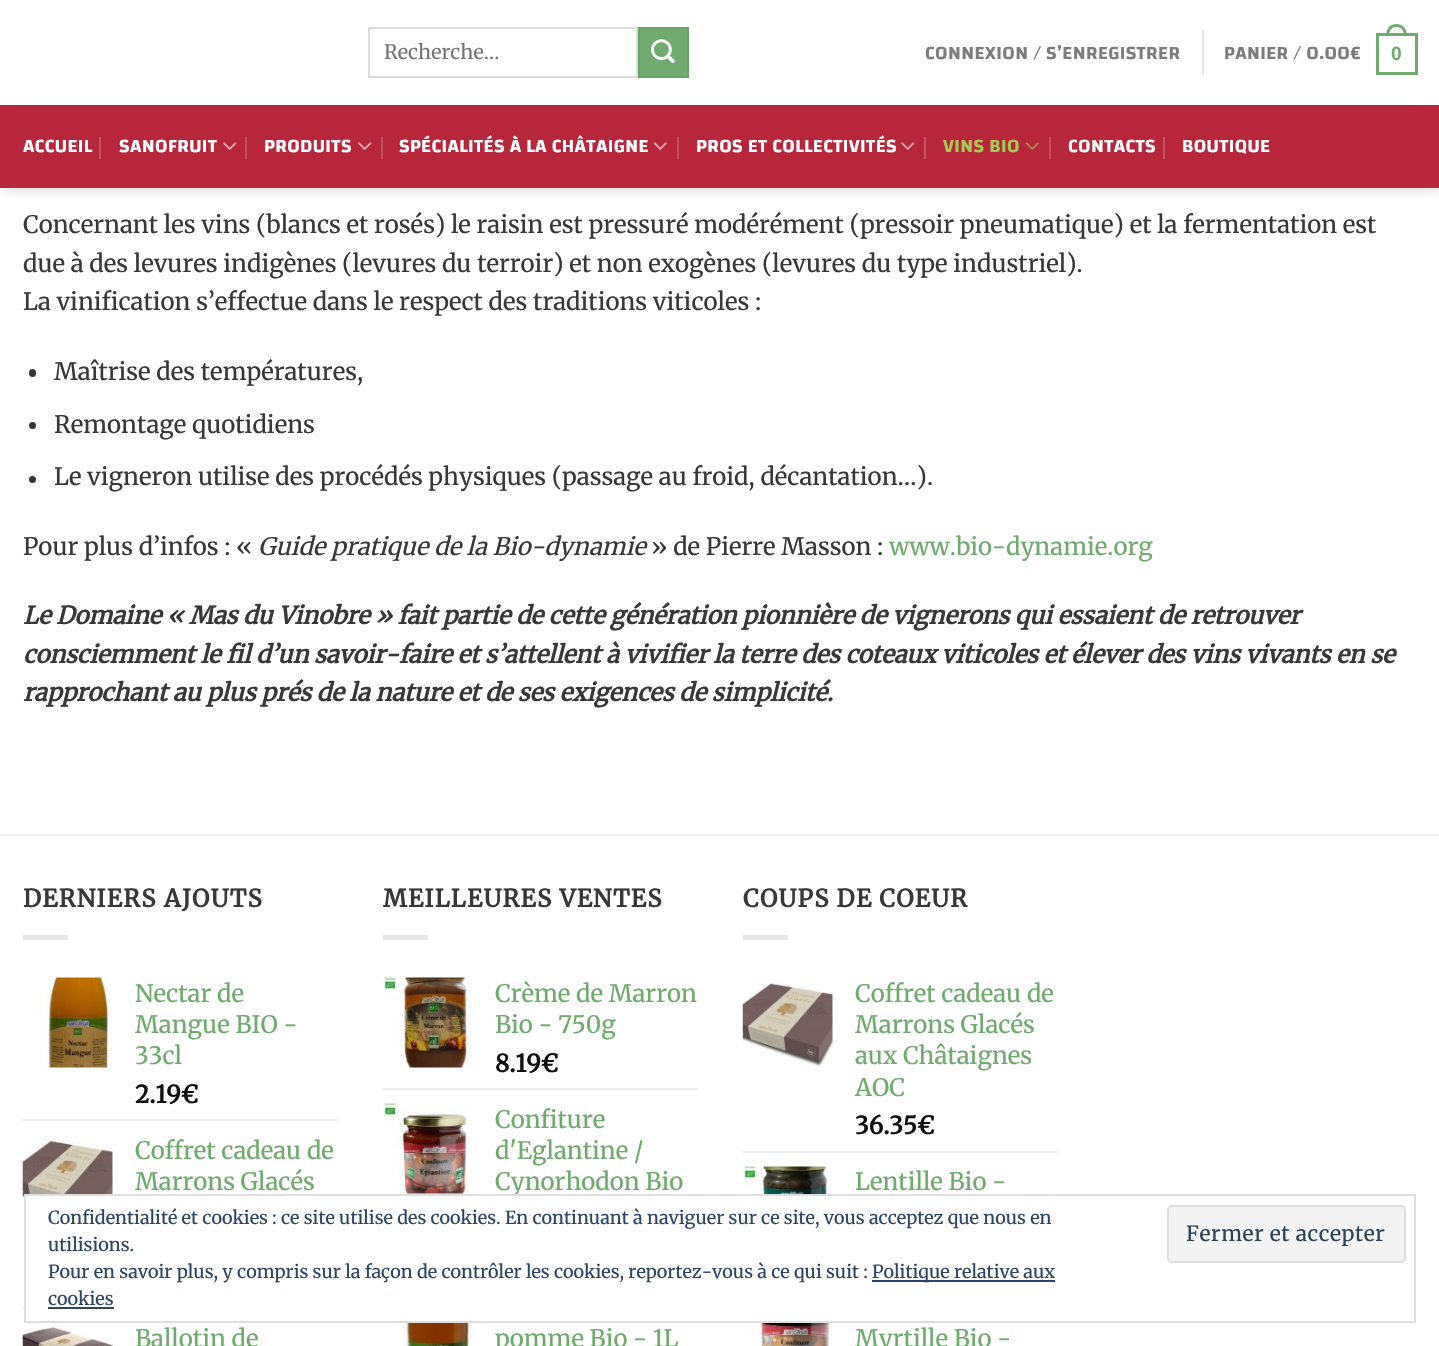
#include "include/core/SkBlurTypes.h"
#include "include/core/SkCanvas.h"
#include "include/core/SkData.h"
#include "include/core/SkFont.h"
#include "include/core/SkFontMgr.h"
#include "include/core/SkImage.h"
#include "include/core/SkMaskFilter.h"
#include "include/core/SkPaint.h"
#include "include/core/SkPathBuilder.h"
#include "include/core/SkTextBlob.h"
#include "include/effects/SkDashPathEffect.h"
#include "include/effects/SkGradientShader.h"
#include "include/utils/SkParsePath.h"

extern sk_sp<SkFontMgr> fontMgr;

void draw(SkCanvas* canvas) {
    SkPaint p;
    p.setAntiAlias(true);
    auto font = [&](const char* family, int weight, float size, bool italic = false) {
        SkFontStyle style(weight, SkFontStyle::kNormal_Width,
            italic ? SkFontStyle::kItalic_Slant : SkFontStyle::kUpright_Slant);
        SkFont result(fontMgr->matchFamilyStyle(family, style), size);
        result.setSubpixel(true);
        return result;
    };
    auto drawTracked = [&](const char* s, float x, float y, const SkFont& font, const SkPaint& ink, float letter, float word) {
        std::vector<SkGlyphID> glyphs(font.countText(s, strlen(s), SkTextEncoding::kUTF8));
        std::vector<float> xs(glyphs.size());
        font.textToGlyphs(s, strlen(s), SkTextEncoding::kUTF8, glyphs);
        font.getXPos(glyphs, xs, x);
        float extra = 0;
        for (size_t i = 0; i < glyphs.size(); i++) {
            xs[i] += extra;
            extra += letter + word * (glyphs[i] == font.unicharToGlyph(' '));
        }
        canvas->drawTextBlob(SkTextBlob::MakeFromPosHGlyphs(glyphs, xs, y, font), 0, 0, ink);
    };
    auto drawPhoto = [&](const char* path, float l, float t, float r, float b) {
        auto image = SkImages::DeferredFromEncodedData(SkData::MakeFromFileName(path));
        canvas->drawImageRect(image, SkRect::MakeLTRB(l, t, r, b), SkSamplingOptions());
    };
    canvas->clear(0xFFFFFFFF);
    p.setColor(0xFF383838);
    canvas->drawCircle(32.5f, 65.5f, 3.5f, p);
    canvas->save();
    canvas->clipRect(SkRect::MakeLTRB(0, 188, 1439, 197));
    p.setColor(0x26000000);
    p.setMaskFilter(SkMaskFilter::MakeBlur(kNormal_SkBlurStyle, 7.5f));
    canvas->drawRect(SkRect::MakeLTRB(2, 2, 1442, 189), p);
    p.setMaskFilter(nullptr);
    canvas->restore();
    p.setColor(0xE6FFFFFF);
    canvas->drawRect(SkRect::MakeLTRB(29, 62, 36, 69), p);
    p.setStyle(SkPaint::kStroke_Style);
    p.setStrokeWidth(2);
    p.setColor(0xFFDDDDDD);
    canvas->drawRect(SkRect::MakeLTRB(369, 28, 637, 77), p);
    auto font1 = font("Merriweather", 300, 19.75f);
    p.setStyle(SkPaint::kFill_Style);
    p.setColor(0xFF757575);
    canvas->drawString("Recherche…", 384, 59, font1, p);
    p.setColor(0xFF70AA6F);
    canvas->drawRect(SkRect::MakeLTRB(639, 28, 688, 77), p);
    p.setStyle(SkPaint::kStroke_Style);
    p.setColor(0xFF6AA269);
    canvas->drawRect(SkRect::MakeLTRB(639, 28, 688, 77), p);
    drawPhoto("media/1.png", 651, 39, 675, 63);
    auto font2 = font("Changa", 600, 19.25f);
    p.setStyle(SkPaint::kFill_Style);
    p.setColor(0xFF7D7D7D);
    drawTracked("CONNEXION / S’ENREGISTRER", 925, 59, font2, p, 0.4f, 0);
    p.setColor(0xFFE5E5E5);
    canvas->drawRect(SkRect::MakeLTRB(1202, 30, 1204, 75), p);
    p.setColor(0xFF7D7D7D);
    drawTracked("PANIER / 0.00€", 1224, 59, font2, p, 0.4f, 0);
    p.setStyle(SkPaint::kStroke_Style);
    p.setStrokeWidth(3);
    p.setColor(0xFF70AA6F);
    canvas->drawRect(SkRect::MakeLTRB(1377.5f, 34.5f, 1416.5f, 73.5f), p);
    p.setStyle(SkPaint::kFill_Style);
    canvas->drawPath(SkPathBuilder(SkPathFillType::kEvenOdd).moveTo(1396.5f, 24).cubicTo(1403.5f, 24, 1407, 29.5f, 1407, 36).lineTo(1386, 36).cubicTo(1386, 29.5f, 1389.5f, 24, 1396.5f, 24).close().moveTo(1396.5f, 27).cubicTo(1402, 27, 1404, 31.5f, 1404, 36).lineTo(1389, 36).cubicTo(1389, 31.5f, 1391, 27, 1396.5f, 27).close().detach(), p);
    auto font3 = font("Liberation Sans", 700, 19.25f);
    drawTracked("0", 1391, 60, font3, p, 0.4f, 0);
    {
        const struct { float l, t, r, b; SkColor color; } items[] = {
            {0, 105, 1439, 188, 0xFFB8263B},
            {23, 105, 1418, 107, 0xFFAB283B},
            {29, 62, 36, 69, 0xE6FFFFFF},
        };
        for (auto [l, t, r, b, color] : items) {
            p.setColor(color);
            canvas->drawRect(SkRect::MakeLTRB(l, t, r, b), p);
        }
    }
    p.setColor(0xFFFFFFFF);
    drawTracked("ACCUEIL", 23, 152, font2, p, 0.4f, 0);
    p.setColor(0xFFC65162);
    canvas->drawRect(SkRect::MakeLTRB(99, 137, 101, 159), p);
    p.setColor(0xFFFFFFFF);
    drawTracked("SANOFRUIT", 119, 152, font2, p, 0.4f, 0);
    drawPhoto("media/2.png", 223, 142, 237, 150);
    p.setColor(0xFFC65162);
    canvas->drawRect(SkRect::MakeLTRB(245, 137, 247, 159), p);
    p.setColor(0xFFFFFFFF);
    drawTracked("PRODUITS", 264, 152, font2, p, 0.4f, 0);
    drawPhoto("media/2.png", 358, 142, 372, 150);
    p.setColor(0xFFC65162);
    canvas->drawRect(SkRect::MakeLTRB(381, 137, 383, 159), p);
    p.setColor(0xFFFFFFFF);
    drawTracked("SPÉCIALITÉS À LA CHÂTAIGNE", 399, 152, font2, p, 0.4f, 0);
    drawPhoto("media/3.png", 653, 142, 667, 150);
    p.setColor(0xFFC65162);
    canvas->drawRect(SkRect::MakeLTRB(677, 137, 679, 159), p);
    p.setColor(0xFFFFFFFF);
    drawTracked("PROS ET COLLECTIVITÉS", 696, 152, font2, p, 0.4f, 0);
    drawPhoto("media/2.png", 901, 142, 915, 150);
    p.setColor(0xFFC65162);
    canvas->drawRect(SkRect::MakeLTRB(924, 137, 926, 159), p);
    p.setColor(0xFFA6C955);
    drawTracked("VINS BIO", 943, 152, font2, p, 0.4f, 0);
    drawPhoto("media/4.png", 1025, 142, 1039, 150);
    p.setColor(0xFFC65162);
    canvas->drawRect(SkRect::MakeLTRB(1049, 137, 1051, 159), p);
    p.setColor(0xFFFFFFFF);
    drawTracked("CONTACTS", 1068, 152, font2, p, 0.4f, 0);
    p.setColor(0xFFC65162);
    canvas->drawRect(SkRect::MakeLTRB(1163, 137, 1165, 159), p);
    p.setColor(0xFFFFFFFF);
    drawTracked("BOUTIQUE", 1182, 152, font2, p, 0.4f, 0);
    auto font4 = font("Merriweather", 300, 24);
    p.setColor(0xFF383838);
    {
        const struct { const char* s; float x, y; } items[] = {
            {"Concernant les vins (blancs et rosés) le raisin est pressuré modérément (pressoir pneumatique) et la fermentation est", 23, 233},
            {"due à des levures indigènes (levures du terroir) et non exogènes (levures du type industriel).", 23, 272},
            {"La vinification s’effectue dans le respect des traditions viticoles :", 23, 310},
        };
        for (auto [s, x, y] : items) {
            canvas->drawString(s, x, y, font4, p);
        }
    }
    canvas->drawRoundRect(SkRect::MakeLTRB(29, 369, 36, 377), 3.5f, 3.5f, p);
    canvas->drawString("Maîtrise des températures,", 54, 380, font4, p);
    canvas->drawCircle(32.5f, 425.5f, 3.5f, p);
    canvas->drawString("Remontage quotidiens", 54, 433, font4, p);
    canvas->drawCircle(32.5f, 479.5f, 3.5f, p);
    canvas->drawString("Le vigneron utilise des procédés physiques (passage au froid, décantation…).", 54, 485, font4, p);
    canvas->drawString("Pour plus d’infos : «", 23, 555, font4, p);
    auto font5 = font("Merriweather", 300, 24, true);
    canvas->drawString("Guide pratique de la Bio-dynamie", 258, 555, font5, p);
    canvas->drawString("» de Pierre Masson :", 651, 555, font4, p);
    p.setColor(0xFF70AA6F);
    canvas->drawString("www.bio-dynamie.org", 889, 555, font4, p);
    auto font6 = font("Merriweather", 700, 24, true);
    p.setColor(0xFF383838);
    {
        const struct { const char* s; float x, y; } items[] = {
            {"Le Domaine « Mas du Vinobre » fait partie de cette génération pionnière de vignerons qui essaient de retrouver", 23, 624},
            {"consciemment le fil d’un savoir-faire et s’attellent à vivifier la terre des coteaux viticoles et élever des vins vivants en se", 23, 663},
            {"rapprochant au plus prés de la nature et de ses exigences de simplicité.", 23, 701},
        };
        for (auto [s, x, y] : items) {
            canvas->drawString(s, x, y, font6, p);
        }
    }
    p.setColor(0xFFF2F2F2);
    canvas->drawRect(SkRect::MakeLTRB(0, 834, 1439, 836), p);
    auto font7 = font("Merriweather", 700, 24);
    p.setColor(0xFF383838);
    drawTracked("DERNIERS AJOUTS", 23, 907, font7, p, 1.25f, 0);
    p.setColor(0xFFE6E6E6);
    canvas->drawRect(SkRect::MakeLTRB(23, 935, 68, 940), p);
    drawPhoto("media/5.png", 37, 977, 109, 1068);
    p.setColor(0xFF70AA6F);
    {
        const struct { const char* s; float x, y; } items[] = {
            {"Nectar de", 135, 1002},
            {"Mangue BIO -", 135, 1033},
            {"33cl", 135, 1064},
        };
        for (auto [s, x, y] : items) {
            canvas->drawString(s, x, y, font4, p);
        }
    }
    p.setColor(0xFF111111);
    canvas->drawString("2.19€", 135, 1103, font7, p);
    p.setColor(0xFFECECEC);
    canvas->drawRect(SkRect::MakeLTRB(23, 1119, 338, 1121), p);
    drawPhoto("media/6.png", 22, 1135, 113, 1224);
    p.setColor(0xFF70AA6F);
    canvas->drawString("Coffret cadeau de", 135, 1159, font4, p);
    canvas->drawString("Marrons Glacés", 135, 1190, font4, p);
    p.setColor(0xFFECECEC);
    canvas->drawRect(SkRect::MakeLTRB(23, 1307, 24, 1309), p);
    drawPhoto("media/7.png", 22, 1323, 113, 1346);
    p.setColor(0xFF70AA6F);
    canvas->drawString("Ballotin de", 135, 1347, font4, p);
    p.setColor(0xFF383838);
    drawTracked("MEILLEURES VENTES", 383, 907, font7, p, 1.25f, 0);
    p.setColor(0xFFE6E6E6);
    canvas->drawRect(SkRect::MakeLTRB(383, 935, 428, 940), p);
    drawPhoto("media/8.png", 383, 977, 470, 1068);
    p.setColor(0xFF70AA6F);
    canvas->drawString("Crème de Marron", 495, 1002, font4, p);
    canvas->drawString("Bio - 750g", 495, 1033, font4, p);
    p.setColor(0xFF111111);
    canvas->drawString("8.19€", 495, 1072, font7, p);
    p.setColor(0xFFECECEC);
    canvas->drawRect(SkRect::MakeLTRB(383, 1088, 698, 1090), p);
    drawPhoto("media/9.png", 383, 1103, 469, 1194);
    p.setColor(0xFF70AA6F);
    {
        const struct { const char* s; float x, y; } items[] = {
            {"Confiture", 495, 1128},
            {"d'Eglantine /", 495, 1159},
            {"Cynorhodon Bio", 495, 1190},
        };
        for (auto [s, x, y] : items) {
            canvas->drawString(s, x, y, font4, p);
        }
    }
    drawPhoto("media/10.png", 397, 1323, 470, 1346);
    canvas->drawString("pomme Bio - 1L", 495, 1347, font4, p);
    p.setColor(0xFF383838);
    drawTracked("COUPS DE COEUR", 743, 907, font7, p, 1.25f, 0);
    p.setColor(0xFFE6E6E6);
    canvas->drawRect(SkRect::MakeLTRB(743, 935, 788, 940), p);
    drawPhoto("media/11.png", 742, 979, 833, 1067);
    p.setColor(0xFF70AA6F);
    {
        const struct { const char* s; float x, y; } items[] = {
            {"Coffret cadeau de", 855, 1002},
            {"Marrons Glacés", 855, 1033},
            {"aux Châtaignes", 855, 1064},
            {"AOC", 855, 1096},
        };
        for (auto [s, x, y] : items) {
            canvas->drawString(s, x, y, font4, p);
        }
    }
    p.setColor(0xFF111111);
    canvas->drawString("36.35€", 855, 1134, font7, p);
    p.setColor(0xFFECECEC);
    canvas->drawRect(SkRect::MakeLTRB(743, 1151, 1058, 1153), p);
    drawPhoto("media/12.png", 743, 1166, 829, 1194);
    p.setColor(0xFF70AA6F);
    canvas->drawString("Lentille Bio -", 855, 1190, font4, p);
    drawPhoto("media/13.png", 743, 1323, 830, 1346);
    canvas->drawString("Myrtille Bio -", 855, 1347, font4, p);
    p.setColor(0xFFFFFFFF);
    canvas->drawRect(SkRect::MakeLTRB(26, 1196, 113, 1224), p);
    p.setStyle(SkPaint::kStroke_Style);
    p.setStrokeWidth(2);
    p.setColor(0xFFDEDEDE);
    canvas->drawRect(SkRect::MakeLTRB(25, 1195, 1415, 1322), p);
    auto font8 = font("Merriweather", 300, 18);
    p.setStyle(SkPaint::kFill_Style);
    p.setColor(0xFF2E4467);
    canvas->drawString("Confidentialité et cookies : ce site utilise des cookies. En continuant à naviguer sur ce site, vous acceptez que nous en", 48, 1224, font8, p);
    canvas->drawString("utilisions.", 48, 1251, font8, p);
    p.setColor(0xFFF3F3F3);
    canvas->drawRoundRect(SkRect::MakeLTRB(1168, 1206, 1405, 1262), 4, 4, p);
    p.setStyle(SkPaint::kStroke_Style);
    p.setColor(0xFFDEDEDE);
    canvas->drawRoundRect(SkRect::MakeLTRB(1168, 1206, 1405, 1262), 4, 4, p);
    auto font9 = font("Merriweather", 300, 21);
    p.setStyle(SkPaint::kFill_Style);
    p.setColor(0xFF2E4453);
    drawTracked("Fermer et accepter", 1186, 1241, font9, p, 0.6f, 0);
    p.setColor(0xFF2E4467);
    canvas->drawString("Pour en savoir plus, y compris sur la façon de contrôler les cookies, reportez-vous à ce qui suit :", 48, 1278, font8, p);
    canvas->drawRect(SkRect::MakeLTRB(872, 1280, 1055, 1282), p);
    canvas->drawString("Politique relative aux", 872, 1278, font8, p);
    canvas->drawString("cookies", 48, 1305, font8, p);
    canvas->drawRect(SkRect::MakeLTRB(48, 1307, 114, 1309), p);
}
